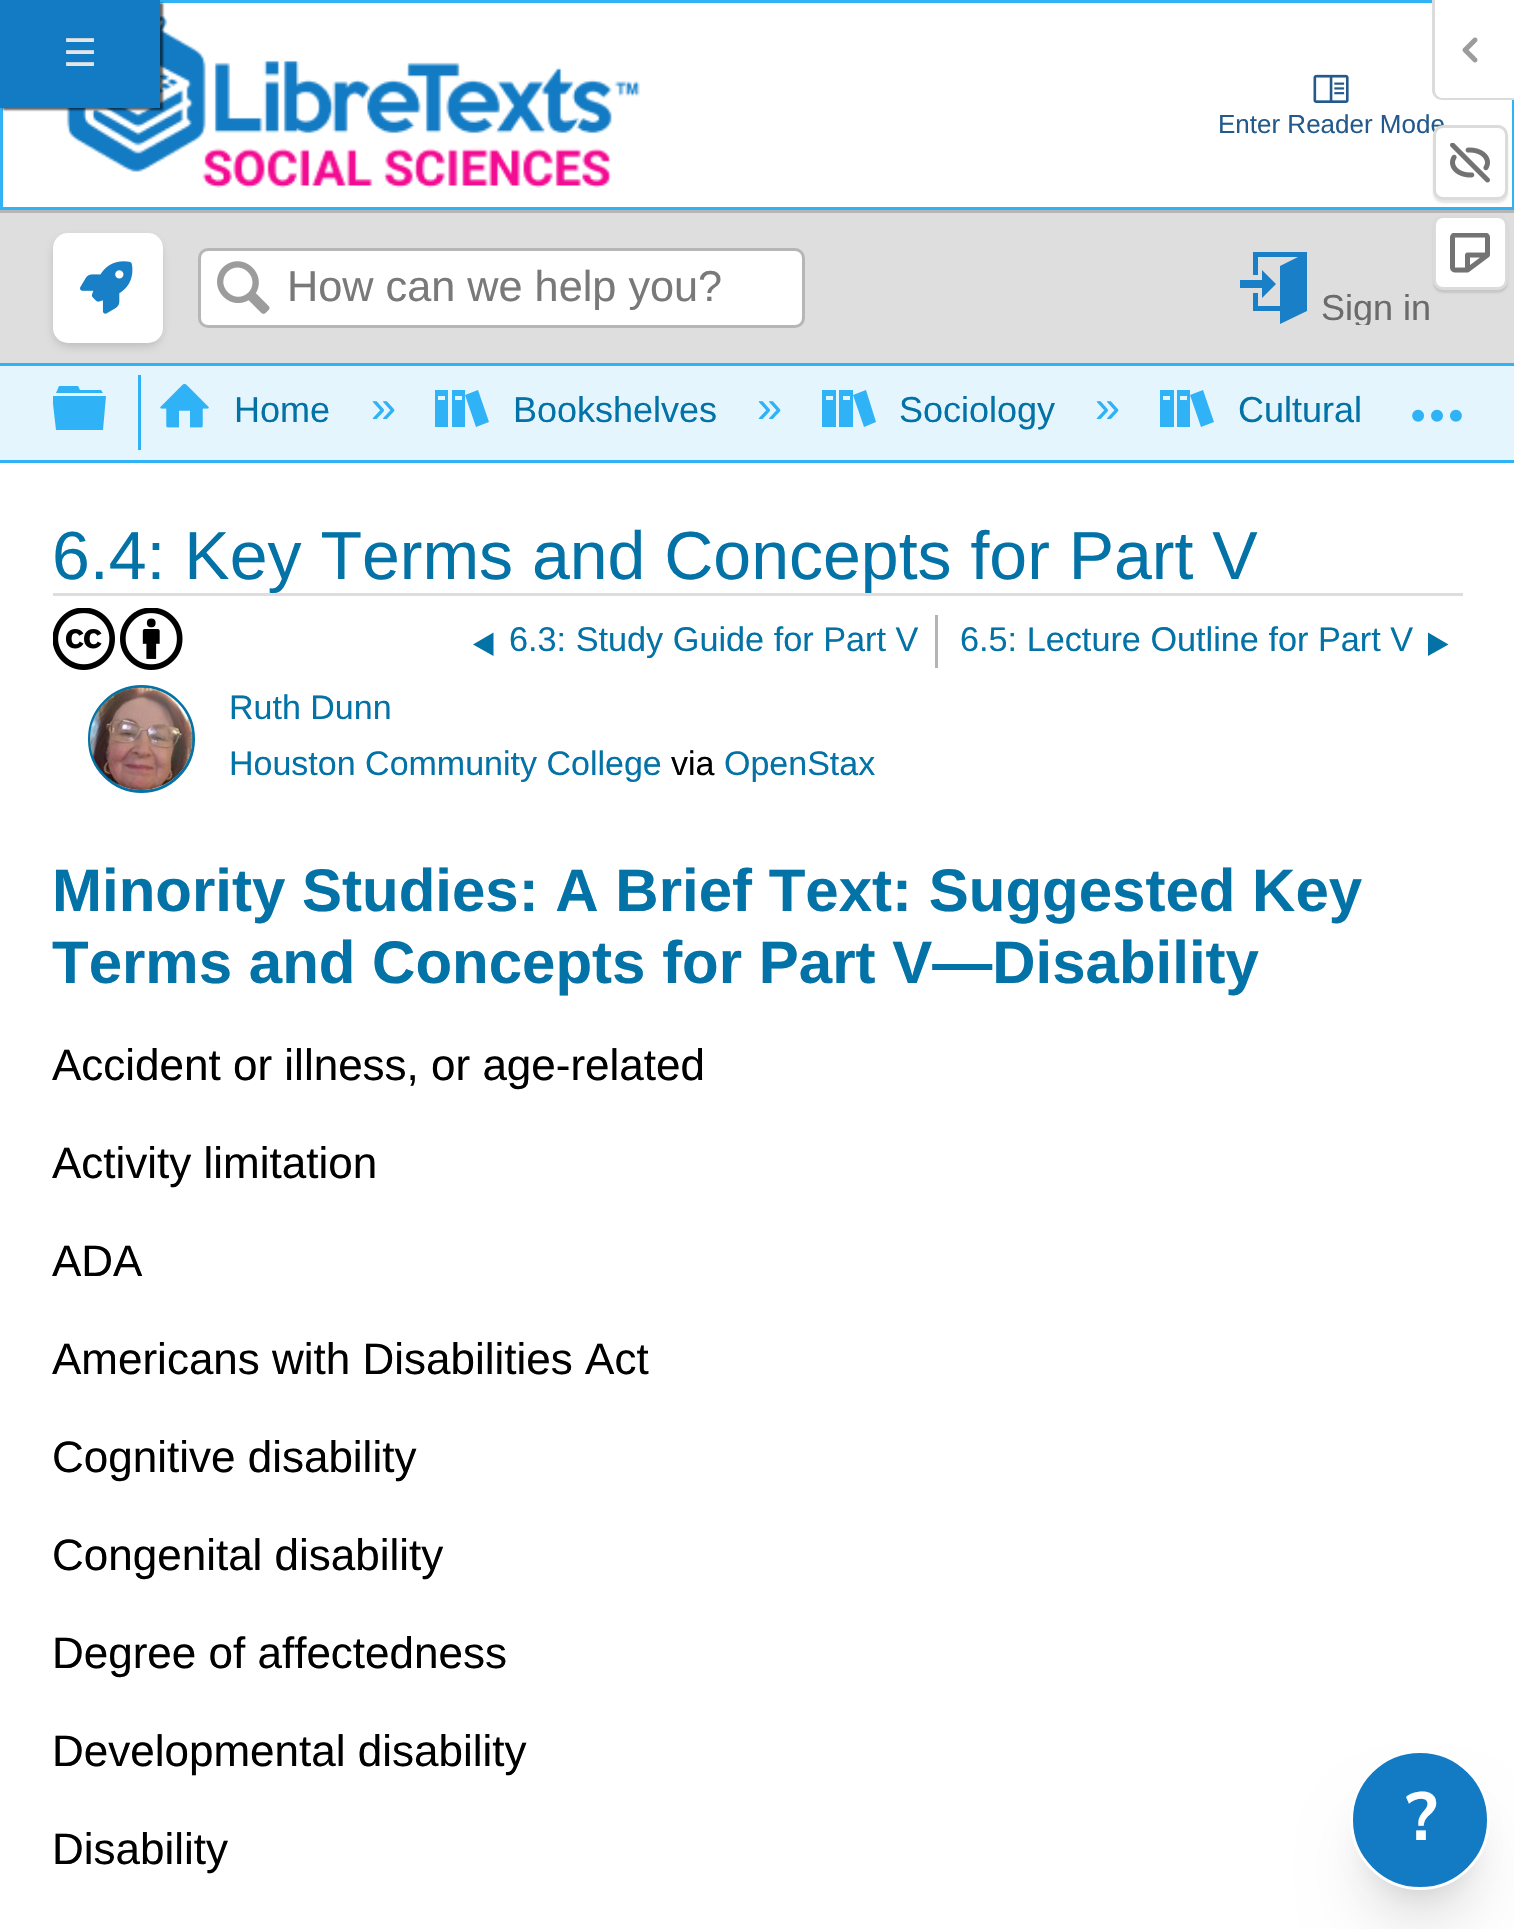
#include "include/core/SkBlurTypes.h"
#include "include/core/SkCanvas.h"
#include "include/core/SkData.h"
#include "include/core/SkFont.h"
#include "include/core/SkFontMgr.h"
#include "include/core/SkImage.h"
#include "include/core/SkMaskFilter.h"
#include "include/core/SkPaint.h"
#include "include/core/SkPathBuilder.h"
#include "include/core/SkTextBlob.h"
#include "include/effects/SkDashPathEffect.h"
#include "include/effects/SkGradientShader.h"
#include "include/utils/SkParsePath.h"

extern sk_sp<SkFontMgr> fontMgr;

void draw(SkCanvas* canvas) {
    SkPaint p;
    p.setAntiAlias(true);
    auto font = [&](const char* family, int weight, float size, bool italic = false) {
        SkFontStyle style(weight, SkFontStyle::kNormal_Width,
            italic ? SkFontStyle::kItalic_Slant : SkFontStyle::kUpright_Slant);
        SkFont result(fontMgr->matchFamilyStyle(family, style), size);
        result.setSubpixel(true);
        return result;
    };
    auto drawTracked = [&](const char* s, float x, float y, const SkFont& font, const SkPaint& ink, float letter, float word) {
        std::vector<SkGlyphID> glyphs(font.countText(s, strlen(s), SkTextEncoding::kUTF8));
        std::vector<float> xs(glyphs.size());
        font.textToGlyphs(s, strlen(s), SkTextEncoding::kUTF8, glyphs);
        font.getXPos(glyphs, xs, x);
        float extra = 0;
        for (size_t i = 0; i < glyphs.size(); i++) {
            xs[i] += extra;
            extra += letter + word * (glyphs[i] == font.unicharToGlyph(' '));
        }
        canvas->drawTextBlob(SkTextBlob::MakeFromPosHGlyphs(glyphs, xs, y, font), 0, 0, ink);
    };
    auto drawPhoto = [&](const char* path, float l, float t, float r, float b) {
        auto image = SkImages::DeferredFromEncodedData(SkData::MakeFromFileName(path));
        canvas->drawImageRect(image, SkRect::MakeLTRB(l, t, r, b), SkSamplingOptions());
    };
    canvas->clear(0xFFFFFFFF);
    p.setStyle(SkPaint::kStroke_Style);
    p.setStrokeWidth(3);
    p.setColor(0xFF30B3F6);
    canvas->drawRect(SkRect::MakeLTRB(1.5f, 1.5f, 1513.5f, 208.5f), p);
    drawPhoto("media/4.png", 66, 16, 640, 188);
    p.setStyle(SkPaint::kFill_Style);
    p.setColor(0x99000000);
    p.setMaskFilter(SkMaskFilter::MakeBlur(kNormal_SkBlurStyle, 1));
    canvas->drawRect(SkRect::MakeLTRB(3, 3, 163, 110), p);
    p.setMaskFilter(nullptr);
    p.setColor(0xFF127BC4);
    canvas->drawRect(SkRect::MakeLTRB(0, 0, 160, 108), p);
    auto font1 = font("DejaVu Sans", 400, 38);
    p.setColor(0xFFE5E5E5);
    drawTracked("☰", 63, 66, font1, p, 1, 0);
    p.setColor(0xFFFFFFFF);
    canvas->drawPath(SkPathBuilder().moveTo(1435, 0).lineTo(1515, 0).lineTo(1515, 98).lineTo(1443, 98).cubicTo(1438.5f, 98, 1435, 94.5f, 1435, 90).close().detach(), p);
    p.setColor(0xFFDBDBDB);
    canvas->drawPath(SkPathBuilder(SkPathFillType::kEvenOdd).moveTo(1432, 0).lineTo(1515, 0).lineTo(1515, 100).lineTo(1442, 100).cubicTo(1437, 100, 1432, 96, 1432, 90).close().moveTo(1435, 0).lineTo(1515, 0).lineTo(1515, 98).lineTo(1442, 98).cubicTo(1438, 98, 1435, 94, 1435, 90).close().detach(), p);
    drawPhoto("media/1.png", 1462, 37, 1478, 63);
    p.setColor(0x1A000000);
    p.setMaskFilter(SkMaskFilter::MakeBlur(kNormal_SkBlurStyle, 1));
    canvas->drawRoundRect(SkRect::MakeLTRB(1433, 128, 1508, 203), 10, 10, p);
    p.setMaskFilter(nullptr);
    auto font2 = font("Liberation Sans", 400, 26);
    p.setColor(0xFF235A8B);
    canvas->drawString("Enter Reader Mode", 1218, 133, font2, p);
    p.setColor(0xFFFFFFFF);
    canvas->drawRoundRect(SkRect::MakeLTRB(1434.5f, 126.5f, 1506.5f, 198.5f), 8.5f, 8.5f, p);
    p.setStyle(SkPaint::kStroke_Style);
    p.setColor(0xFFDBDBDB);
    canvas->drawRoundRect(SkRect::MakeLTRB(1434.5f, 126.5f, 1506.5f, 198.5f), 8.5f, 8.5f, p);
    drawPhoto("media/2.png", 1450, 143, 1490, 183);
    p.setStyle(SkPaint::kFill_Style);
    p.setColor(0xFFDEDEDE);
    canvas->drawRect(SkRect::MakeLTRB(0, 213, 1514, 363), p);
    p.setColor(0x1A000000);
    p.setMaskFilter(SkMaskFilter::MakeBlur(kNormal_SkBlurStyle, 1));
    canvas->drawRoundRect(SkRect::MakeLTRB(1433, 218, 1508, 293), 10, 10, p);
    p.setMaskFilter(nullptr);
    p.setColor(0xFFFFFFFF);
    canvas->drawRoundRect(SkRect::MakeLTRB(1434.5f, 216.5f, 1506.5f, 288.5f), 8.5f, 8.5f, p);
    p.setStyle(SkPaint::kStroke_Style);
    p.setColor(0xFFDBDBDB);
    canvas->drawRoundRect(SkRect::MakeLTRB(1434.5f, 216.5f, 1506.5f, 288.5f), 8.5f, 8.5f, p);
    drawPhoto("media/3.png", 1450, 233, 1490, 273);
    drawPhoto("media/5.png", 1313, 74, 1349, 103);
    p.setStyle(SkPaint::kFill_Style);
    p.setColor(0xFFB6B6B6);
    canvas->drawRect(SkRect::MakeLTRB(0, 210, 1514, 213), p);
    p.setColor(0xFF30B3F6);
    canvas->drawRect(SkRect::MakeLTRB(0, 363, 1514, 366), p);
    p.setColor(0x33080808);
    p.setMaskFilter(SkMaskFilter::MakeBlur(kNormal_SkBlurStyle, 6));
    canvas->drawRoundRect(SkRect::MakeLTRB(55, 240, 160, 345), 13, 13, p);
    p.setMaskFilter(nullptr);
    p.setColor(0xFFFFFFFF);
    canvas->drawRoundRect(SkRect::MakeLTRB(53, 233, 163, 343), 15, 15, p);
    drawPhoto("media/6.png", 80, 261, 133, 314);
    canvas->drawRoundRect(SkRect::MakeLTRB(199.5f, 249.5f, 803.5f, 326.5f), 8.5f, 8.5f, p);
    p.setStyle(SkPaint::kStroke_Style);
    p.setColor(0xFFB6B6B6);
    canvas->drawRoundRect(SkRect::MakeLTRB(199.5f, 249.5f, 803.5f, 326.5f), 8.5f, 8.5f, p);
    drawPhoto("media/7.png", 217, 261, 270, 314);
    auto font3 = font("Liberation Sans", 400, 43.25f);
    p.setStyle(SkPaint::kFill_Style);
    p.setColor(0xFF797979);
    canvas->drawString("How can we help you?", 287, 301, font3, p);
    p.setColor(0xFF197FC6);
    canvas->drawPath(SkPathBuilder().moveTo(1262, 288).lineTo(1240, 288).lineTo(1240, 280).lineTo(1262, 280).lineTo(1262, 270).lineTo(1276, 284).lineTo(1262, 298).close().moveTo(1307, 252).lineTo(1307, 311).lineTo(1280, 324).lineTo(1280, 311).lineTo(1253, 311).lineTo(1253, 293).lineTo(1258, 293).lineTo(1258, 306).lineTo(1280, 306).lineTo(1280, 266).lineTo(1298, 257).lineTo(1258, 257).lineTo(1258, 275).lineTo(1253, 275).lineTo(1253, 252).close().detach(), p);
    canvas->save();
    canvas->clipRect(SkRect::MakeLTRB(1235, 250, 1445, 325));
    auto font4 = font("Liberation Sans", 400, 36);
    p.setColor(0xFF6B6B6B);
    canvas->drawString("Sign in", 1321, 320, font4, p);
    canvas->restore();
    p.setColor(0xFFE5F5FE);
    canvas->drawRect(SkRect::MakeLTRB(0, 366, 1514, 460), p);
    p.setColor(0xFF30B3F6);
    canvas->drawRect(SkRect::MakeLTRB(0, 460, 1514, 463), p);
    canvas->drawPath(SkPathBuilder(SkPathFillType::kEvenOdd).moveTo(53, 404).lineTo(53, 396).lineTo(106, 396).lineTo(103, 430).lineTo(56, 430).close().moveTo(101, 390).lineTo(80, 390).lineTo(78, 386).lineTo(59, 386).lineTo(56, 393).lineTo(103, 393).close().detach(), p);
    canvas->drawRect(SkRect::MakeLTRB(138, 375, 141, 450), p);
    drawPhoto("media/8.png", 160, 384, 209, 428);
    p.setColor(0xFF0372A6);
    canvas->drawString("Home", 234, 422, font4, p);
    auto font5 = font("Liberation Sans", 400, 45);
    p.setColor(0xFF30B3F6);
    canvas->drawString("»", 371, 422, font5, p);
    p.setColor(0xFF0372A6);
    canvas->drawString("Bookshelves", 513, 422, font4, p);
    p.setColor(0xFF30B3F6);
    canvas->drawPath(SkPathBuilder().moveTo(465, 395).lineTo(478, 390).lineTo(489, 422).lineTo(476, 427).close().moveTo(435, 427).lineTo(448, 427).lineTo(448, 390).lineTo(435, 390).close().moveTo(438, 396).lineTo(445, 396).lineTo(445, 400).lineTo(438, 400).close().moveTo(452, 427).lineTo(465, 427).lineTo(465, 390).lineTo(452, 390).close().moveTo(455, 396).lineTo(462, 396).lineTo(462, 400).lineTo(455, 400).close().detach(), p);
    canvas->drawString("»", 757, 422, font5, p);
    p.setColor(0xFF0372A6);
    canvas->drawString("Sociology", 899, 422, font4, p);
    p.setColor(0xFF30B3F6);
    canvas->drawPath(SkPathBuilder().moveTo(853, 395).lineTo(866, 390).lineTo(876, 422).lineTo(864, 427).close().moveTo(822, 427).lineTo(836, 427).lineTo(836, 390).lineTo(822, 390).close().moveTo(826, 396).lineTo(833, 396).lineTo(833, 400).lineTo(826, 400).close().moveTo(839, 427).lineTo(853, 427).lineTo(853, 390).lineTo(839, 390).close().moveTo(843, 396).lineTo(850, 396).lineTo(850, 400).lineTo(843, 400).close().detach(), p);
    canvas->drawString("»", 1095, 422, font5, p);
    p.setColor(0xFF0372A6);
    canvas->drawString("Cultural", 1238, 422, font4, p);
    p.setColor(0xFF30B3F6);
    canvas->drawPath(SkPathBuilder().moveTo(1190, 395).lineTo(1203, 390).lineTo(1214, 422).lineTo(1201, 427).close().moveTo(1160, 427).lineTo(1174, 427).lineTo(1174, 390).lineTo(1160, 390).close().moveTo(1163, 396).lineTo(1170, 396).lineTo(1170, 400).lineTo(1163, 400).close().moveTo(1177, 427).lineTo(1190, 427).lineTo(1190, 390).lineTo(1177, 390).close().moveTo(1180, 396).lineTo(1187, 396).lineTo(1187, 400).lineTo(1180, 400).close().detach(), p);
    drawPhoto("media/9.png", 1412, 409, 1462, 422);
    p.setColor(0xFFDDDDDD);
    canvas->drawRect(SkRect::MakeLTRB(53, 593, 1463, 596), p);
    auto font6 = font("Liberation Sans", 400, 68);
    p.setColor(0xFF0372A6);
    canvas->drawString("6.4: Key Terms and Concepts for Part V", 52, 579, font6, p);
    drawPhoto("media/10.png", 53, 608, 115, 670);
    drawPhoto("media/11.png", 120, 608, 183, 670);
    p.setColor(0xFFB4B4B4);
    canvas->drawRect(SkRect::MakeLTRB(935, 615, 938, 668), p);
    p.setColor(0xFF0372A6);
    canvas->drawPath(SkPathBuilder().moveTo(493.5f, 632.5f).lineTo(493.5f, 656).lineTo(473, 644.5f).close().detach(), p);
    auto font7 = font("Liberation Sans", 400, 34.25f);
    canvas->drawString("6.3: Study Guide for Part V", 509, 651, font7, p);
    canvas->drawString("6.5: Lecture Outline for Part V", 960, 651, font7, p);
    canvas->drawPath(SkPathBuilder().moveTo(1428, 632.5f).lineTo(1428, 656).lineTo(1448.5f, 644.5f).close().detach(), p);
    p.setStyle(SkPaint::kStroke_Style);
    canvas->drawRoundRect(SkRect::MakeLTRB(89.5f, 686.5f, 193.5f, 791.5f), 52, 52, p);
    drawPhoto("media/12.png", 90, 687, 193, 790);
    auto font8 = font("Liberation Sans", 400, 34);
    p.setStyle(SkPaint::kFill_Style);
    canvas->drawString("Ruth Dunn", 229, 719, font8, p);
    canvas->drawString("Houston Community College", 229, 775, font8, p);
    p.setColor(0xFF000000);
    canvas->drawString("via", 671, 775, font8, p);
    p.setColor(0xFF0372A6);
    canvas->drawString("OpenStax", 724, 775, font8, p);
    auto font9 = font("Liberation Sans", 700, 60);
    canvas->drawString("Minority Studies: A Brief Text: Suggested Key", 52, 911, font9, p);
    canvas->drawString("Terms and Concepts for Part V—Disability", 52, 983, font9, p);
    auto font10 = font("Liberation Sans", 400, 44);
    p.setColor(0xFF000000);
    {
        const struct { const char* s; float x, y; } items[] = {
            {"Accident or illness, or age-related", 52, 1080},
            {"Activity limitation", 52, 1178},
            {"ADA", 52, 1276},
            {"Americans with Disabilities Act", 52, 1374},
            {"Cognitive disability", 52, 1472},
            {"Congenital disability", 52, 1570},
            {"Degree of affectedness", 52, 1668},
            {"Developmental disability", 52, 1766},
            {"Disability", 52, 1864},
        };
        for (auto [s, x, y] : items) {
            canvas->drawString(s, x, y, font10, p);
        }
    }
    p.setColor(0x1A000000);
    p.setMaskFilter(SkMaskFilter::MakeBlur(kNormal_SkBlurStyle, 12.5f));
    canvas->drawRoundRect(SkRect::MakeLTRB(1365, 1785, 1475, 1895), 55, 55, p);
    p.setMaskFilter(nullptr);
    p.setMaskFilter(SkMaskFilter::MakeBlur(kNormal_SkBlurStyle, 31));
    canvas->drawRoundRect(SkRect::MakeLTRB(1363, 1813, 1478, 1928), 57.5f, 57.5f, p);
    p.setMaskFilter(nullptr);
    p.setColor(0xFF127BC4);
    canvas->drawCircle(1420, 1820, 68.5f, p);
    p.setStyle(SkPaint::kStroke_Style);
    p.setColor(0xFFFFFFFF);
    canvas->drawCircle(1420, 1820, 68.5f, p);
    auto font11 = font("Nunito Sans", 700, 68);
    p.setStyle(SkPaint::kFill_Style);
    canvas->drawString("?", 1406, 1840, font11, p);
}
